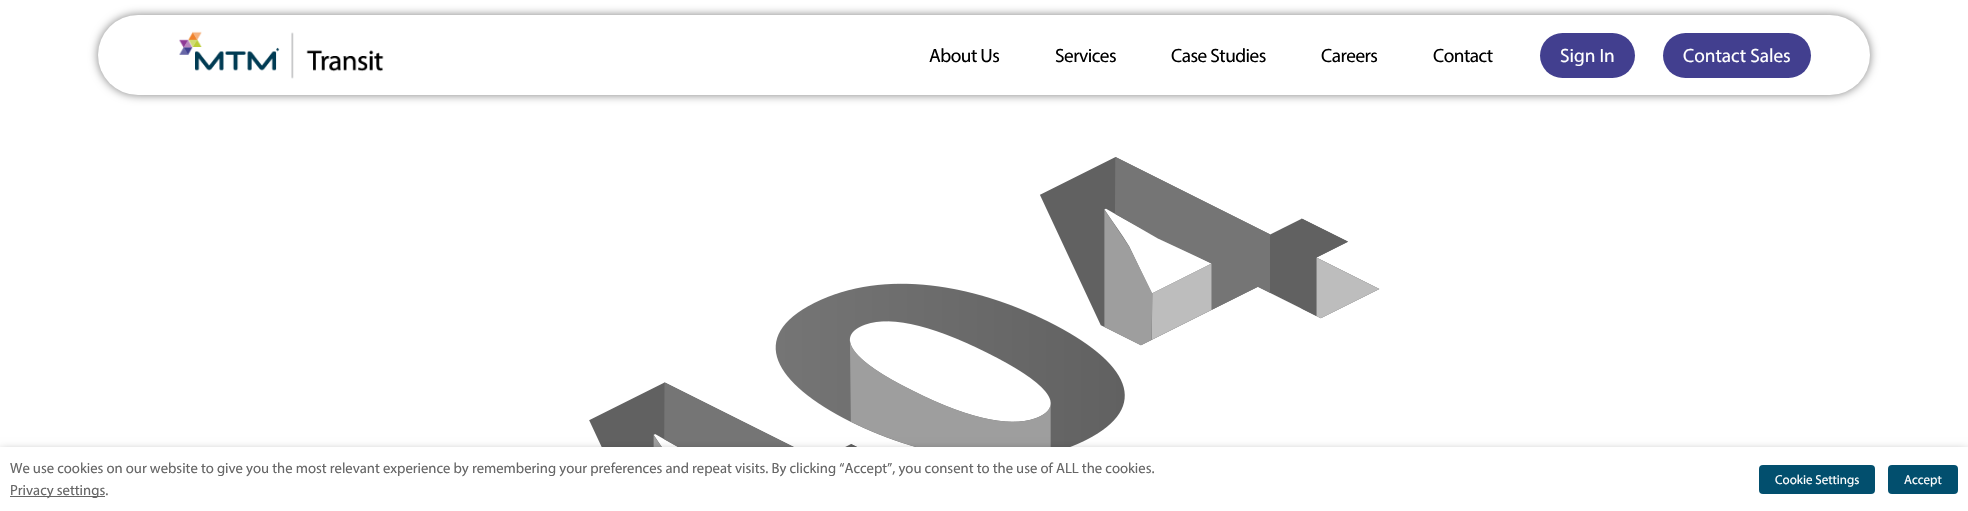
#include "include/core/SkBlurTypes.h"
#include "include/core/SkCanvas.h"
#include "include/core/SkData.h"
#include "include/core/SkFont.h"
#include "include/core/SkFontMgr.h"
#include "include/core/SkImage.h"
#include "include/core/SkMaskFilter.h"
#include "include/core/SkPaint.h"
#include "include/core/SkPathBuilder.h"
#include "include/core/SkTextBlob.h"
#include "include/effects/SkDashPathEffect.h"
#include "include/effects/SkGradientShader.h"
#include "include/utils/SkParsePath.h"

extern sk_sp<SkFontMgr> fontMgr;

void draw(SkCanvas* canvas) {
    SkPaint p;
    p.setAntiAlias(true);
    auto font = [&](const char* family, int weight, float size, bool italic = false) {
        SkFontStyle style(weight, SkFontStyle::kNormal_Width,
            italic ? SkFontStyle::kItalic_Slant : SkFontStyle::kUpright_Slant);
        SkFont result(fontMgr->matchFamilyStyle(family, style), size);
        result.setSubpixel(true);
        return result;
    };
    auto drawTracked = [&](const char* s, float x, float y, const SkFont& font, const SkPaint& ink, float letter, float word) {
        std::vector<SkGlyphID> glyphs(font.countText(s, strlen(s), SkTextEncoding::kUTF8));
        std::vector<float> xs(glyphs.size());
        font.textToGlyphs(s, strlen(s), SkTextEncoding::kUTF8, glyphs);
        font.getXPos(glyphs, xs, x);
        float extra = 0;
        for (size_t i = 0; i < glyphs.size(); i++) {
            xs[i] += extra;
            extra += letter + word * (glyphs[i] == font.unicharToGlyph(' '));
        }
        canvas->drawTextBlob(SkTextBlob::MakeFromPosHGlyphs(glyphs, xs, y, font), 0, 0, ink);
    };
    auto drawPhoto = [&](const char* path, float l, float t, float r, float b) {
        auto image = SkImages::DeferredFromEncodedData(SkData::MakeFromFileName(path));
        canvas->drawImageRect(image, SkRect::MakeLTRB(l, t, r, b), SkSamplingOptions());
    };
    canvas->clear(0xFFFFFFFF);
    p.setColor(0x80000000);
    p.setMaskFilter(SkMaskFilter::MakeBlur(kNormal_SkBlurStyle, 5));
    canvas->drawRoundRect(SkRect::MakeLTRB(98, 15, 1870, 95), 40, 40, p);
    p.setMaskFilter(nullptr);
    p.setColor(0xFFFFFFFF);
    canvas->drawRoundRect(SkRect::MakeLTRB(98, 15, 1870, 95), 40, 40, p);
    drawPhoto("media/1.png", 179, 31, 384, 79);
    auto font1 = font("Myriad", 400, 19.25f);
    p.setColor(0xFF000000);
    {
        const struct { const char* s; float x, y; } items[] = {
            {"About Us", 929, 62},
            {"Services", 1055, 62},
            {"Case Studies", 1171, 62},
            {"Careers", 1321, 62},
            {"Contact", 1433, 62},
        };
        for (auto [s, x, y] : items) {
            drawTracked(s, x, y, font1, p, -0.5f, 0);
        }
    }
    p.setColor(0xFF423F8F);
    canvas->drawRoundRect(SkRect::MakeLTRB(1540, 33, 1635, 78), 22.5f, 22.5f, p);
    p.setColor(0xFFFFFFFF);
    canvas->drawString("Sign In", 1560, 62, font1, p);
    p.setColor(0xFF423F8F);
    canvas->drawRoundRect(SkRect::MakeLTRB(1663, 33, 1811, 78), 22.5f, 22.5f, p);
    p.setColor(0xFFFFFFFF);
    canvas->drawString("Contact Sales", 1683, 62, font1, p);
    drawPhoto("media/2.png", 589, 157, 1380, 447);
    p.setColor(0x80000000);
    p.setMaskFilter(SkMaskFilter::MakeBlur(kNormal_SkBlurStyle, 5));
    canvas->drawRect(SkRect::MakeLTRB(0, 452, 1968, 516), p);
    p.setMaskFilter(nullptr);
    p.setColor(0xFFFFFFFF);
    canvas->drawRect(SkRect::MakeLTRB(0, 447, 1968, 511), p);
    auto font2 = font("Myriad", 400, 14.67f);
    p.setColor(0xFF666666);
    canvas->drawString("We use cookies on our website to give you the most relevant experience by remembering your preferences and repeat visits. By clicking “Accept”, you consent to the use of ALL the cookies.", 10, 473, font2, p);
    canvas->drawRect(SkRect::MakeLTRB(10, 496, 105, 497), p);
    canvas->drawString("Privacy settings.", 10, 495, font2, p);
    p.setColor(0xFF024F6E);
    canvas->drawRoundRect(SkRect::MakeLTRB(1759, 465, 1875, 494), 4, 4, p);
    auto font3 = font("Myriad", 400, 13);
    p.setColor(0xFFFFFFFF);
    canvas->drawString("Cookie Settings", 1775, 484, font3, p);
    p.setColor(0xFF024F6E);
    canvas->drawRoundRect(SkRect::MakeLTRB(1888, 465, 1958, 494), 4, 4, p);
    p.setColor(0xFFFFFFFF);
    canvas->drawString("Accept", 1904, 484, font3, p);
}
